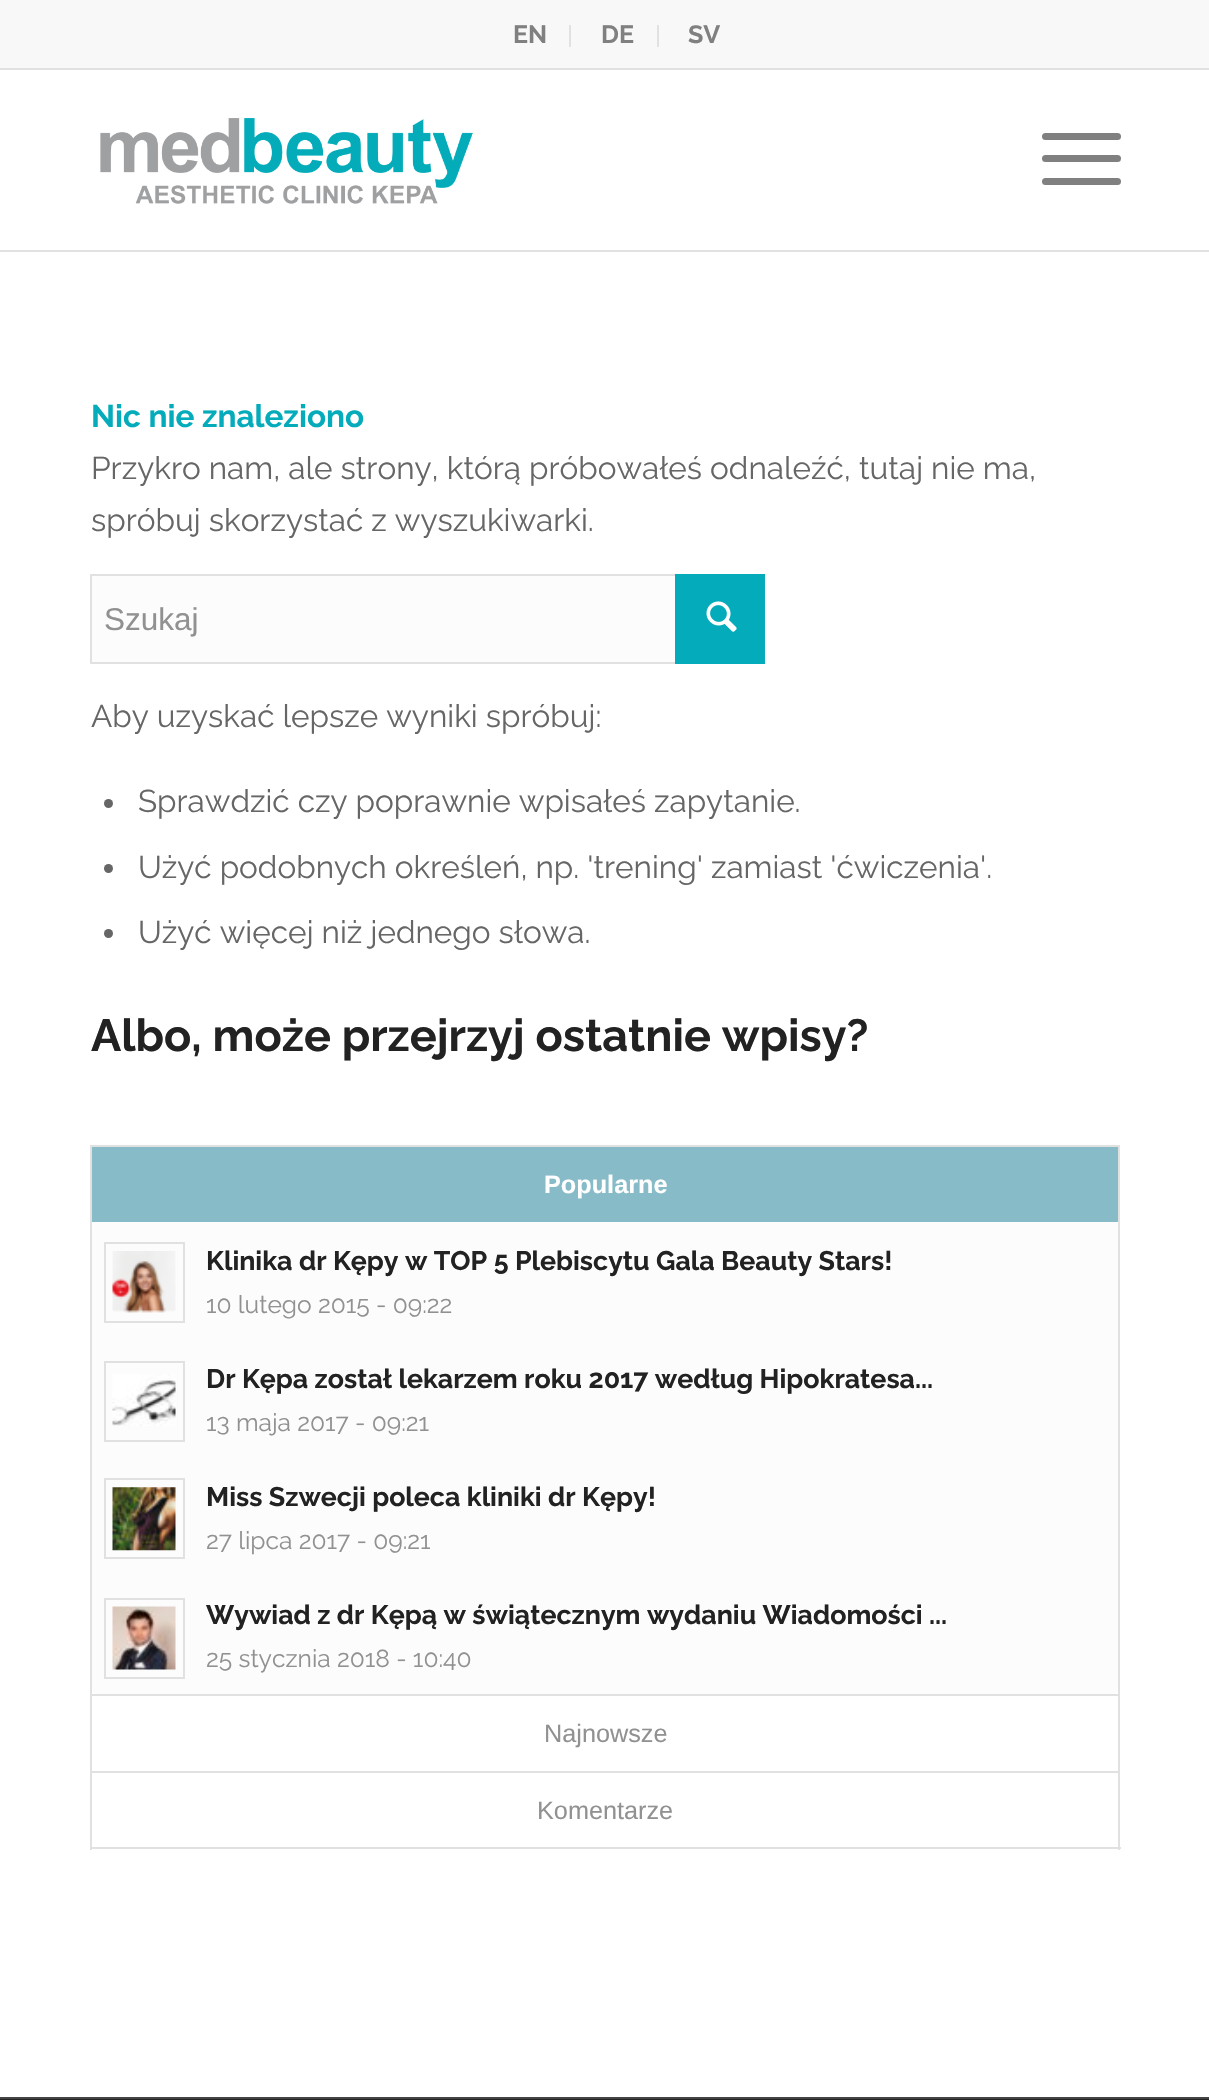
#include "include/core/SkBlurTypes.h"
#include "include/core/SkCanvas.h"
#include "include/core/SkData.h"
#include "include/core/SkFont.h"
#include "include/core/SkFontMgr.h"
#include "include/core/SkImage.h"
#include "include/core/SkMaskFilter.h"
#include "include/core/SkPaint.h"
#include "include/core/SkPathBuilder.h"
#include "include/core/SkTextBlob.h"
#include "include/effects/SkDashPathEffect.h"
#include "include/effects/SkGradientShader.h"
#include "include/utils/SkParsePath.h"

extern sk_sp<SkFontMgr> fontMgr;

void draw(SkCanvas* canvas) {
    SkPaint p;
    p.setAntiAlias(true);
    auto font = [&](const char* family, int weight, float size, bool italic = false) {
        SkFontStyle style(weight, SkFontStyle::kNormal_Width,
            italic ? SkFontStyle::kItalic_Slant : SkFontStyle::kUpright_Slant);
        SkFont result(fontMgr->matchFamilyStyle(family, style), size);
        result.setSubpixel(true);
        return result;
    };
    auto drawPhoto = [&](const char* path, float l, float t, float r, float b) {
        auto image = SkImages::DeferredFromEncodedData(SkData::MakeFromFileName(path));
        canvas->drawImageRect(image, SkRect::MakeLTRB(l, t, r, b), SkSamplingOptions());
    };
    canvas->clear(0xFFFFFFFF);
    {
        const struct { float l, t, r, b; SkColor color; } items[] = {
            {0, 0, 1209, 68, 0xFFF8F8F8},
            {0, 68, 1209, 70, 0xFFE1E1E1},
            {569, 25, 571, 47, 0xFFE1E1E1},
        };
        for (auto [l, t, r, b, color] : items) {
            p.setColor(color);
            canvas->drawRect(SkRect::MakeLTRB(l, t, r, b), p);
        }
    }
    auto font1 = font("Raleway", 700, 25);
    p.setColor(0xFF808080);
    canvas->drawString("EN", 513, 43, font1, p);
    p.setColor(0xFFE1E1E1);
    canvas->drawRect(SkRect::MakeLTRB(657, 25, 659, 47), p);
    p.setColor(0xFF808080);
    canvas->drawString("DE", 601, 43, font1, p);
    canvas->drawString("SV", 688, 43, font1, p);
    p.setColor(0xFFE1E1E1);
    canvas->drawRect(SkRect::MakeLTRB(0, 250, 1209, 252), p);
    drawPhoto("media/1.png", 100, 118, 473, 204);
    p.setColor(0xFF808080);
    canvas->drawRoundRect(SkRect::MakeLTRB(1042, 155, 1121, 162), 3.5f, 3.5f, p);
    canvas->drawRoundRect(SkRect::MakeLTRB(1042, 133, 1121, 140), 3.5f, 3.5f, p);
    canvas->drawRoundRect(SkRect::MakeLTRB(1042, 178, 1121, 185), 3.5f, 3.5f, p);
    auto font2 = font("Raleway", 700, 31.5f);
    p.setColor(0xFF04ACBB);
    canvas->drawString("Nic nie znaleziono", 91, 427, font2, p);
    auto font3 = font("Raleway", 400, 31.5f);
    p.setColor(0xFF666666);
    canvas->drawString("Przykro nam, ale strony, którą próbowałeś odnaleźć, tutaj nie ma,", 91, 479, font3, p);
    canvas->drawString("spróbuj skorzystać z wyszukiwarki.", 91, 531, font3, p);
    p.setColor(0xFFFCFCFC);
    canvas->drawRect(SkRect::MakeLTRB(92, 576, 675, 662), p);
    p.setStyle(SkPaint::kStroke_Style);
    p.setStrokeWidth(2);
    p.setColor(0xFFE1E1E1);
    canvas->drawRect(SkRect::MakeLTRB(91, 575, 764, 663), p);
    auto font4 = font("Liberation Sans", 400, 31.5f);
    p.setStyle(SkPaint::kFill_Style);
    p.setColor(0xFF919191);
    canvas->drawString("Szukaj", 104, 630, font4, p);
    p.setColor(0xFF04ACBB);
    canvas->drawRect(SkRect::MakeLTRB(675, 574, 765, 664), p);
    drawPhoto("media/2.png", 706, 601, 737, 632);
    p.setColor(0xFF666666);
    canvas->drawString("Aby uzyskać lepsze wyniki spróbuj:", 91, 727, font3, p);
    canvas->drawCircle(108.5f, 803.5f, 4.5f, p);
    canvas->drawString("Sprawdzić czy poprawnie wpisałeś zapytanie.", 138, 812, font3, p);
    canvas->drawCircle(108.5f, 868.5f, 4.5f, p);
    canvas->drawString("Użyć podobnych określeń, np. 'trening' zamiast 'ćwiczenia'.", 138, 878, font3, p);
    canvas->drawCircle(108.5f, 933.5f, 4.5f, p);
    canvas->drawString("Użyć więcej niż jednego słowa.", 138, 943, font3, p);
    auto font5 = font("Raleway", 700, 45);
    p.setColor(0xFF222222);
    canvas->drawString("Albo, może przejrzyj ostatnie wpisy?", 91, 1051, font5, p);
    {
        const struct { float l, t, r, b; SkColor color; } items[] = {
            {1118, 1145, 1120, 1850, 0xFFE1E1E1},
            {90, 1847, 1121, 1849, 0xFFE1E1E1},
            {90, 1145, 92, 1850, 0xFFE1E1E1},
            {92, 1147, 1118, 1222, 0xFF88BBC8},
            {92, 1145, 1118, 1147, 0xFFE1E1E1},
        };
        for (auto [l, t, r, b, color] : items) {
            p.setColor(color);
            canvas->drawRect(SkRect::MakeLTRB(l, t, r, b), p);
        }
    }
    auto font6 = font("Liberation Sans", 700, 25.25f);
    p.setColor(0xFFFFFFFF);
    canvas->drawString("Popularne", 544, 1193, font6, p);
    p.setColor(0xFFFCFCFC);
    canvas->drawRoundRect(SkRect::MakeLTRB(92, 1222, 1118, 1694), 5, 5, p);
    p.setStyle(SkPaint::kStroke_Style);
    p.setColor(0xFFE1E1E1);
    canvas->drawRect(SkRect::MakeLTRB(105, 1243, 184, 1322), p);
    drawPhoto("media/3.png", 112, 1251, 176, 1313);
    auto font7 = font("Raleway", 700, 26.75f);
    p.setStyle(SkPaint::kFill_Style);
    p.setColor(0xFF222222);
    canvas->drawString("Klinika dr Kępy w TOP 5 Plebiscytu Gala Beauty Stars!", 206, 1270, font7, p);
    auto font8 = font("Raleway", 400, 24.6f);
    p.setColor(0xFF919191);
    canvas->drawString("10 lutego 2015 - 09:22", 206, 1313, font8, p);
    p.setStyle(SkPaint::kStroke_Style);
    p.setColor(0xFFE1E1E1);
    canvas->drawRect(SkRect::MakeLTRB(105, 1362, 184, 1441), p);
    drawPhoto("media/4.png", 112, 1374, 176, 1426);
    p.setStyle(SkPaint::kFill_Style);
    p.setColor(0xFF222222);
    canvas->drawString("Dr Kępa został lekarzem roku 2017 według Hipokratesa...", 206, 1388, font7, p);
    p.setColor(0xFF919191);
    canvas->drawString("13 maja 2017 - 09:21", 206, 1431, font8, p);
    p.setStyle(SkPaint::kStroke_Style);
    p.setColor(0xFFE1E1E1);
    canvas->drawRect(SkRect::MakeLTRB(105, 1479, 184, 1558), p);
    drawPhoto("media/5.png", 112, 1487, 176, 1551);
    p.setStyle(SkPaint::kFill_Style);
    p.setColor(0xFF222222);
    canvas->drawString("Miss Szwecji poleca kliniki dr Kępy!", 206, 1506, font7, p);
    p.setColor(0xFF919191);
    canvas->drawString("27 lipca 2017 - 09:21", 206, 1549, font8, p);
    p.setStyle(SkPaint::kStroke_Style);
    p.setColor(0xFFE1E1E1);
    canvas->drawRect(SkRect::MakeLTRB(105, 1599, 184, 1678), p);
    drawPhoto("media/6.png", 112, 1606, 176, 1670);
    p.setStyle(SkPaint::kFill_Style);
    p.setColor(0xFF222222);
    canvas->drawString("Wywiad z dr Kępą w świątecznym wydaniu Wiadomości ...", 206, 1624, font7, p);
    p.setColor(0xFF919191);
    canvas->drawString("25 stycznia 2018 - 10:40", 206, 1667, font8, p);
    p.setColor(0xFFE1E1E1);
    canvas->drawRect(SkRect::MakeLTRB(92, 1694, 1118, 1696), p);
    auto font9 = font("Liberation Sans", 400, 25.25f);
    p.setColor(0xFF919191);
    canvas->drawString("Najnowsze", 544, 1742, font9, p);
    p.setColor(0xFFE1E1E1);
    canvas->drawRect(SkRect::MakeLTRB(92, 1771, 1118, 1773), p);
    p.setColor(0xFF919191);
    canvas->drawString("Komentarze", 537, 1819, font9, p);
    p.setColor(0xFF222222);
    canvas->drawRect(SkRect::MakeLTRB(0, 2099, 1209, 2100), p);
    p.setColor(0xFF444444);
    canvas->drawRect(SkRect::MakeLTRB(0, 2097, 1209, 2099), p);
}
